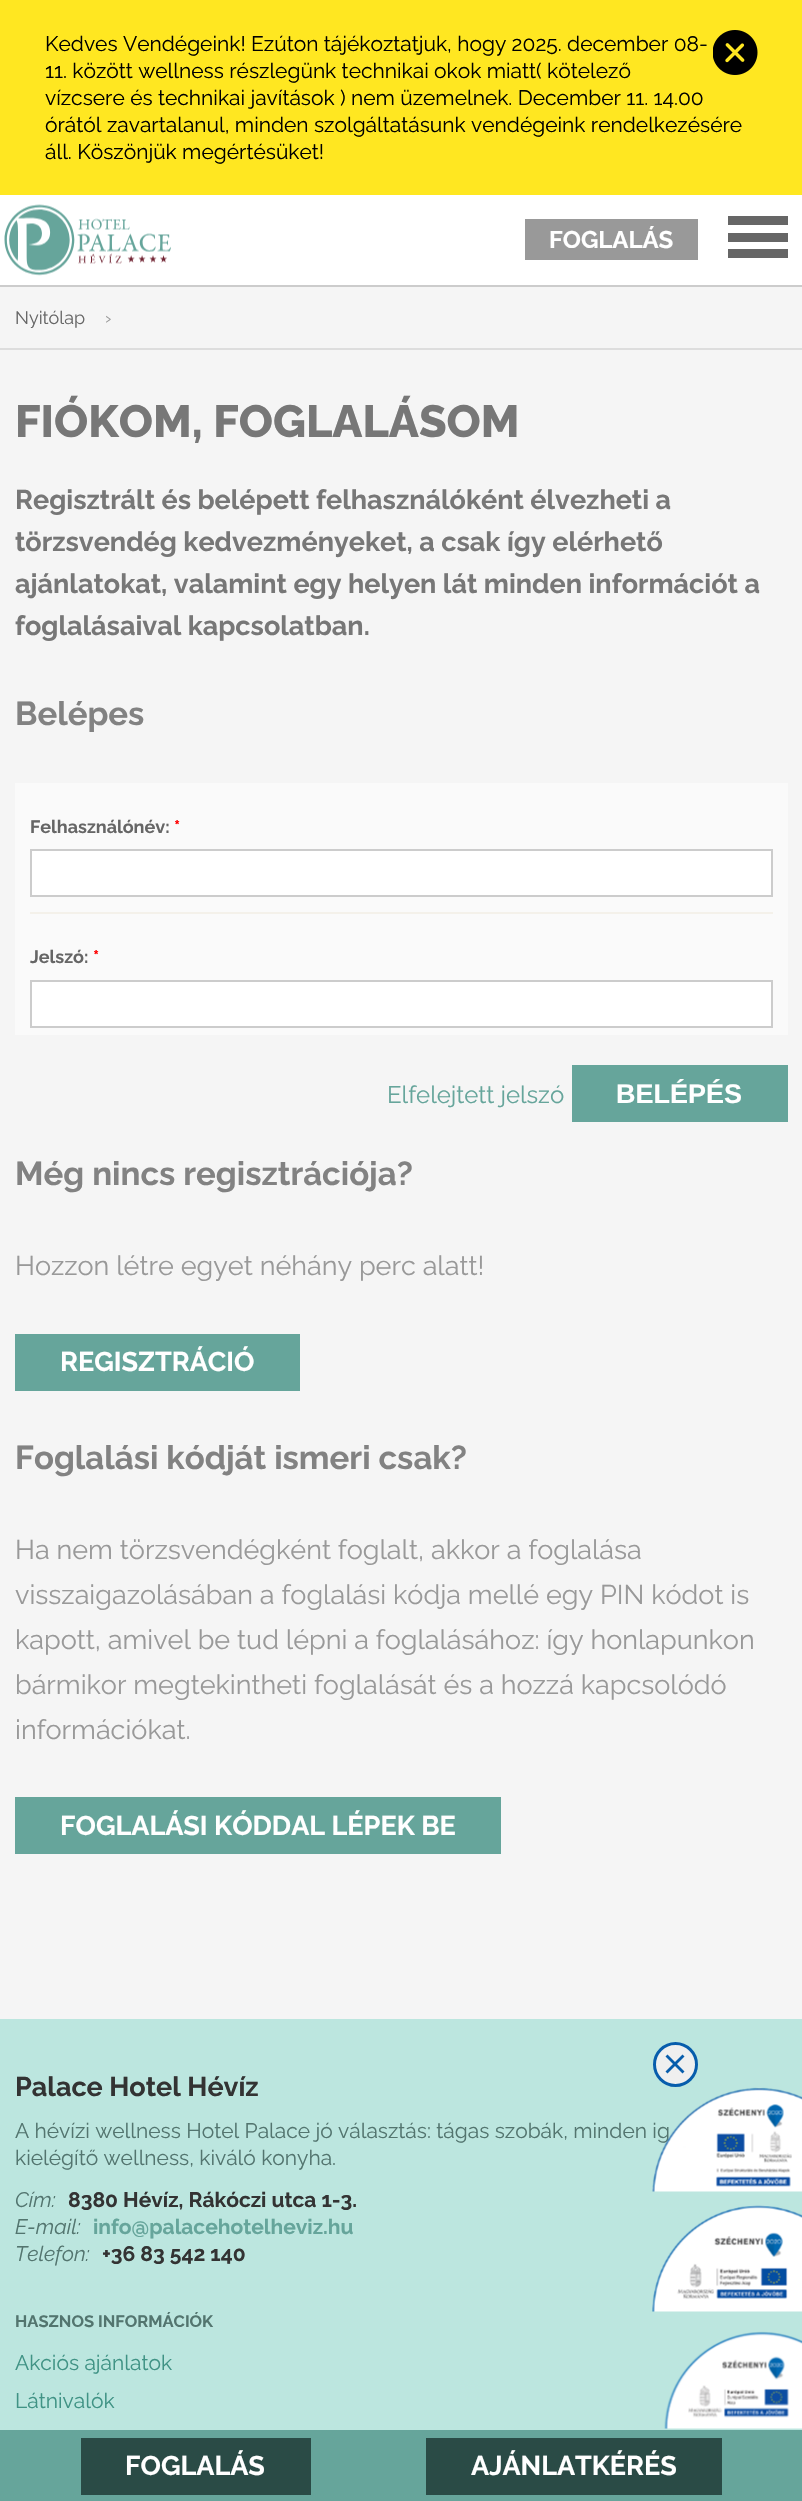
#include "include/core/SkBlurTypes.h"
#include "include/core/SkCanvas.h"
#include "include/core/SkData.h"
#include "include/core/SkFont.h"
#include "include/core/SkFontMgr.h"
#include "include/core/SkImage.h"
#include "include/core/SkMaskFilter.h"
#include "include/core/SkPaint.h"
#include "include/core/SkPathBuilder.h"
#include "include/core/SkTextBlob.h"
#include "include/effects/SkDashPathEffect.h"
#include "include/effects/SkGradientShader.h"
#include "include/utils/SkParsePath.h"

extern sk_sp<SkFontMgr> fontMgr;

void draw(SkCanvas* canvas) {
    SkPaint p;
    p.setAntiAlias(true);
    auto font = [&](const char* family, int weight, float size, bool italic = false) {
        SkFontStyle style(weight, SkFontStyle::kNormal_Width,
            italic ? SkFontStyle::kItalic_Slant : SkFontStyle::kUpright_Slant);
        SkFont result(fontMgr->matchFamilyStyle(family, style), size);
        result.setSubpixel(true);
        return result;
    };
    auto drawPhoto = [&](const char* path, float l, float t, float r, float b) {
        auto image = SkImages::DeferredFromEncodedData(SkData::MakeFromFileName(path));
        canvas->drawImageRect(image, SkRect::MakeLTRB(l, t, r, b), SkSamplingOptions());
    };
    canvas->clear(0xFFF5F5F5);
    p.setColor(0xFFFFE721);
    canvas->drawRect(SkRect::MakeLTRB(0, 0, 802, 195), p);
    auto font1 = font("Raleway", 400, 21);
    p.setColor(0xFF000000);
    canvas->drawString("Kedves Vendégeink! Ezúton tájékoztatjuk, hogy 2025. december 08-", 45, 51, font1, p);
    drawPhoto("media/1.png", 713, 30, 758, 75);
    {
        const struct { const char* s; float x, y; } items[] = {
            {"11. között wellness részlegünk technikai okok miatt( kötelező", 45, 78},
            {"vízcsere és technikai javítások ) nem üzemelnek. December 11. 14.00", 45, 105},
            {"órától zavartalanul, minden szolgáltatásunk vendégeink rendelkezésére", 45, 132},
            {"áll. Köszönjük megértésüket!", 45, 159},
        };
        for (auto [s, x, y] : items) {
            canvas->drawString(s, x, y, font1, p);
        }
    }
    p.setColor(0xFFFFFFFF);
    canvas->drawRect(SkRect::MakeLTRB(0, 195, 802, 285), p);
    p.setColor(0xFFCCCCCC);
    canvas->drawRect(SkRect::MakeLTRB(0, 285, 802, 287), p);
    drawPhoto("media/2.png", 4, 204, 171, 276);
    p.setColor(0xFF999999);
    canvas->drawRect(SkRect::MakeLTRB(525, 219, 698, 260), p);
    auto font2 = font("Raleway", 700, 24);
    p.setColor(0xFFFFFFFF);
    canvas->drawString("FOGLALÁS", 549, 248, font2, p);
    {
        const struct { float l, t, r, b; SkColor color; } items[] = {
            {728, 233, 788, 242, 0xFF666666},
            {728, 216, 788, 225, 0xFF666666},
            {728, 249, 788, 258, 0xFF666666},
            {0, 348, 802, 350, 0xFFDDDDDD},
        };
        for (auto [l, t, r, b, color] : items) {
            p.setColor(color);
            canvas->drawRect(SkRect::MakeLTRB(l, t, r, b), p);
        }
    }
    auto font3 = font("Raleway", 400, 18);
    p.setColor(0xFF666666);
    canvas->drawString("Nyitólap", 15, 324, font3, p);
    p.setColor(0xFF999999);
    canvas->drawString("›", 105, 324, font3, p);
    auto font4 = font("Raleway", 800, 45);
    p.setColor(0xFF777777);
    canvas->drawString("FIÓKOM, FOGLALÁSOM", 15, 437, font4, p);
    auto font5 = font("Raleway", 700, 27);
    {
        const struct { const char* s; float x, y; } items[] = {
            {"Regisztrált és belépett felhasználóként élvezheti a", 15, 509},
            {"törzsvendég kedvezményeket, a csak így elérhető", 15, 551},
            {"ajánlatokat, valamint egy helyen lát minden információt a", 15, 593},
            {"foglalásaival kapcsolatban.", 15, 635},
        };
        for (auto [s, x, y] : items) {
            canvas->drawString(s, x, y, font5, p);
        }
    }
    auto font6 = font("Raleway", 700, 33);
    p.setColor(0xFF828282);
    canvas->drawString("Belépes", 15, 725, font6, p);
    p.setColor(0xFFFAFAFA);
    canvas->drawRect(SkRect::MakeLTRB(15, 783, 788, 1035), p);
    auto font7 = font("Raleway", 700, 18);
    p.setColor(0xFF666666);
    canvas->drawString("Felhasználónév:", 30, 833, font7, p);
    p.setColor(0xFFFF0000);
    canvas->drawString("*", 174, 833, font7, p);
    p.setColor(0xFFFFFFFF);
    canvas->drawRect(SkRect::MakeLTRB(31, 850, 772, 896), p);
    p.setStyle(SkPaint::kStroke_Style);
    p.setStrokeWidth(2);
    p.setColor(0xFFCCCCCC);
    canvas->drawRect(SkRect::MakeLTRB(31, 850, 772, 896), p);
    p.setStyle(SkPaint::kFill_Style);
    p.setColor(0xFFF4F1EA);
    canvas->drawRect(SkRect::MakeLTRB(30, 912, 773, 914), p);
    p.setColor(0xFF666666);
    canvas->drawString("Jelszó:", 30, 963, font7, p);
    p.setColor(0xFFFF0000);
    canvas->drawString("*", 93, 963, font7, p);
    p.setColor(0xFFFFFFFF);
    canvas->drawRect(SkRect::MakeLTRB(31, 981, 772, 1027), p);
    p.setStyle(SkPaint::kStroke_Style);
    p.setColor(0xFFCCCCCC);
    canvas->drawRect(SkRect::MakeLTRB(31, 981, 772, 1027), p);
    auto font8 = font("Raleway", 400, 24);
    p.setStyle(SkPaint::kFill_Style);
    p.setColor(0xFF66A59B);
    canvas->drawString("Elfelejtett jelszó", 387, 1103, font8, p);
    canvas->drawRect(SkRect::MakeLTRB(572, 1065, 788, 1122), p);
    auto font9 = font("Liberation Sans", 700, 27);
    p.setColor(0xFFFFFFFF);
    canvas->drawString("BELÉPÉS", 616, 1103, font9, p);
    p.setColor(0xFF828282);
    canvas->drawString("Még nincs regisztrációja?", 15, 1185, font6, p);
    auto font10 = font("Raleway", 400, 27);
    p.setColor(0xFF999999);
    canvas->drawString("Hozzon létre egyet néhány perc alatt!", 15, 1275, font10, p);
    p.setColor(0xFF66A59B);
    canvas->drawRect(SkRect::MakeLTRB(15, 1334, 300, 1391), p);
    p.setColor(0xFFFFFFFF);
    canvas->drawString("REGISZTRÁCIÓ", 60, 1371, font5, p);
    p.setColor(0xFF828282);
    canvas->drawString("Foglalási kódját ismeri csak?", 15, 1469, font6, p);
    p.setColor(0xFF999999);
    {
        const struct { const char* s; float x, y; } items[] = {
            {"Ha nem törzsvendégként foglalt, akkor a foglalása", 15, 1559},
            {"visszaigazolásában a foglalási kódja mellé egy PIN kódot is", 15, 1604},
            {"kapott, amivel be tud lépni a foglalásához: így honlapunkon", 15, 1649},
            {"bármikor megtekintheti foglalását és a hozzá kapcsolódó", 15, 1694},
            {"információkat.", 15, 1739},
        };
        for (auto [s, x, y] : items) {
            canvas->drawString(s, x, y, font10, p);
        }
    }
    p.setColor(0xFF66A59B);
    canvas->drawRect(SkRect::MakeLTRB(15, 1797, 501, 1854), p);
    p.setColor(0xFFFFFFFF);
    canvas->drawString("FOGLALÁSI KÓDDAL LÉPEK BE", 60, 1835, font5, p);
    p.setColor(0xFFBCE6DF);
    canvas->drawRect(SkRect::MakeLTRB(0, 2019, 802, 2430), p);
    p.setColor(0xFF333333);
    canvas->drawString("Palace Hotel Hévíz", 15, 2096, font5, p);
    p.setColor(0xFF53756F);
    canvas->drawString("A hévízi wellness Hotel Palace jó választás: tágas szobák, minden ig", 15, 2138, font1, p);
    canvas->drawString("kielégítő wellness, kiváló konyha.", 15, 2165, font1, p);
    auto font11 = font("Raleway", 400, 21, true);
    canvas->drawString("Cím:", 15, 2207, font11, p);
    auto font12 = font("Raleway", 700, 21);
    p.setColor(0xFF333333);
    canvas->drawString("8380 Hévíz, Rákóczi utca 1-3.", 68, 2207, font12, p);
    p.setColor(0xFF53756F);
    canvas->drawString("E-mail:", 15, 2234, font11, p);
    p.setColor(0xFF66A59B);
    canvas->drawString("info@palacehotelheviz.hu", 93, 2234, font12, p);
    p.setColor(0xFF53756F);
    canvas->drawString("Telefon:", 15, 2261, font11, p);
    p.setColor(0xFF333333);
    canvas->drawString("+36 83 542 140", 102, 2261, font12, p);
    auto font13 = font("Raleway", 700, 16.5f);
    p.setColor(0xFF53756F);
    canvas->drawString("HASZNOS INFORMÁCIÓK", 15, 2327, font13, p);
    p.setColor(0xFF409385);
    canvas->drawString("Akciós ajánlatok", 15, 2370, font1, p);
    canvas->drawString("Látnivalók", 15, 2408, font1, p);
    p.setColor(0xFFEFEFEF);
    canvas->drawCircle(675.5f, 2064.5f, 21, p);
    p.setStyle(SkPaint::kStroke_Style);
    p.setStrokeWidth(3);
    p.setColor(0xFF075DAC);
    canvas->drawCircle(675.5f, 2064.5f, 21, p);
    p.setStyle(SkPaint::kFill_Style);
    canvas->drawPath(SkPathBuilder().moveTo(682.5f, 2054.5f).lineTo(684.5f, 2056.5f).lineTo(667.5f, 2073.5f).lineTo(665.5f, 2071.5f).close().detach(), p);
    canvas->drawPath(SkPathBuilder().moveTo(667.5f, 2054.5f).lineTo(684.5f, 2071.5f).lineTo(682.5f, 2073.5f).lineTo(665.5f, 2056.5f).close().detach(), p);
    drawPhoto("media/3.png", 652, 2087, 802, 2192);
    drawPhoto("media/4.png", 652, 2205, 802, 2312);
    drawPhoto("media/5.png", 664, 2331, 802, 2429);
    p.setColor(0xFF66A59B);
    canvas->drawRect(SkRect::MakeLTRB(0, 2430, 802, 2501), p);
    p.setColor(0xFF2A4B46);
    canvas->drawRect(SkRect::MakeLTRB(81, 2438, 311, 2495), p);
    p.setColor(0xFFFFFFFF);
    canvas->drawString("FOGLALÁS", 125, 2475, font5, p);
    p.setColor(0xFF2A4B46);
    canvas->drawRect(SkRect::MakeLTRB(426, 2438, 722, 2495), p);
    p.setColor(0xFFFFFFFF);
    canvas->drawString("AJÁNLATKÉRÉS", 471, 2475, font5, p);
}
